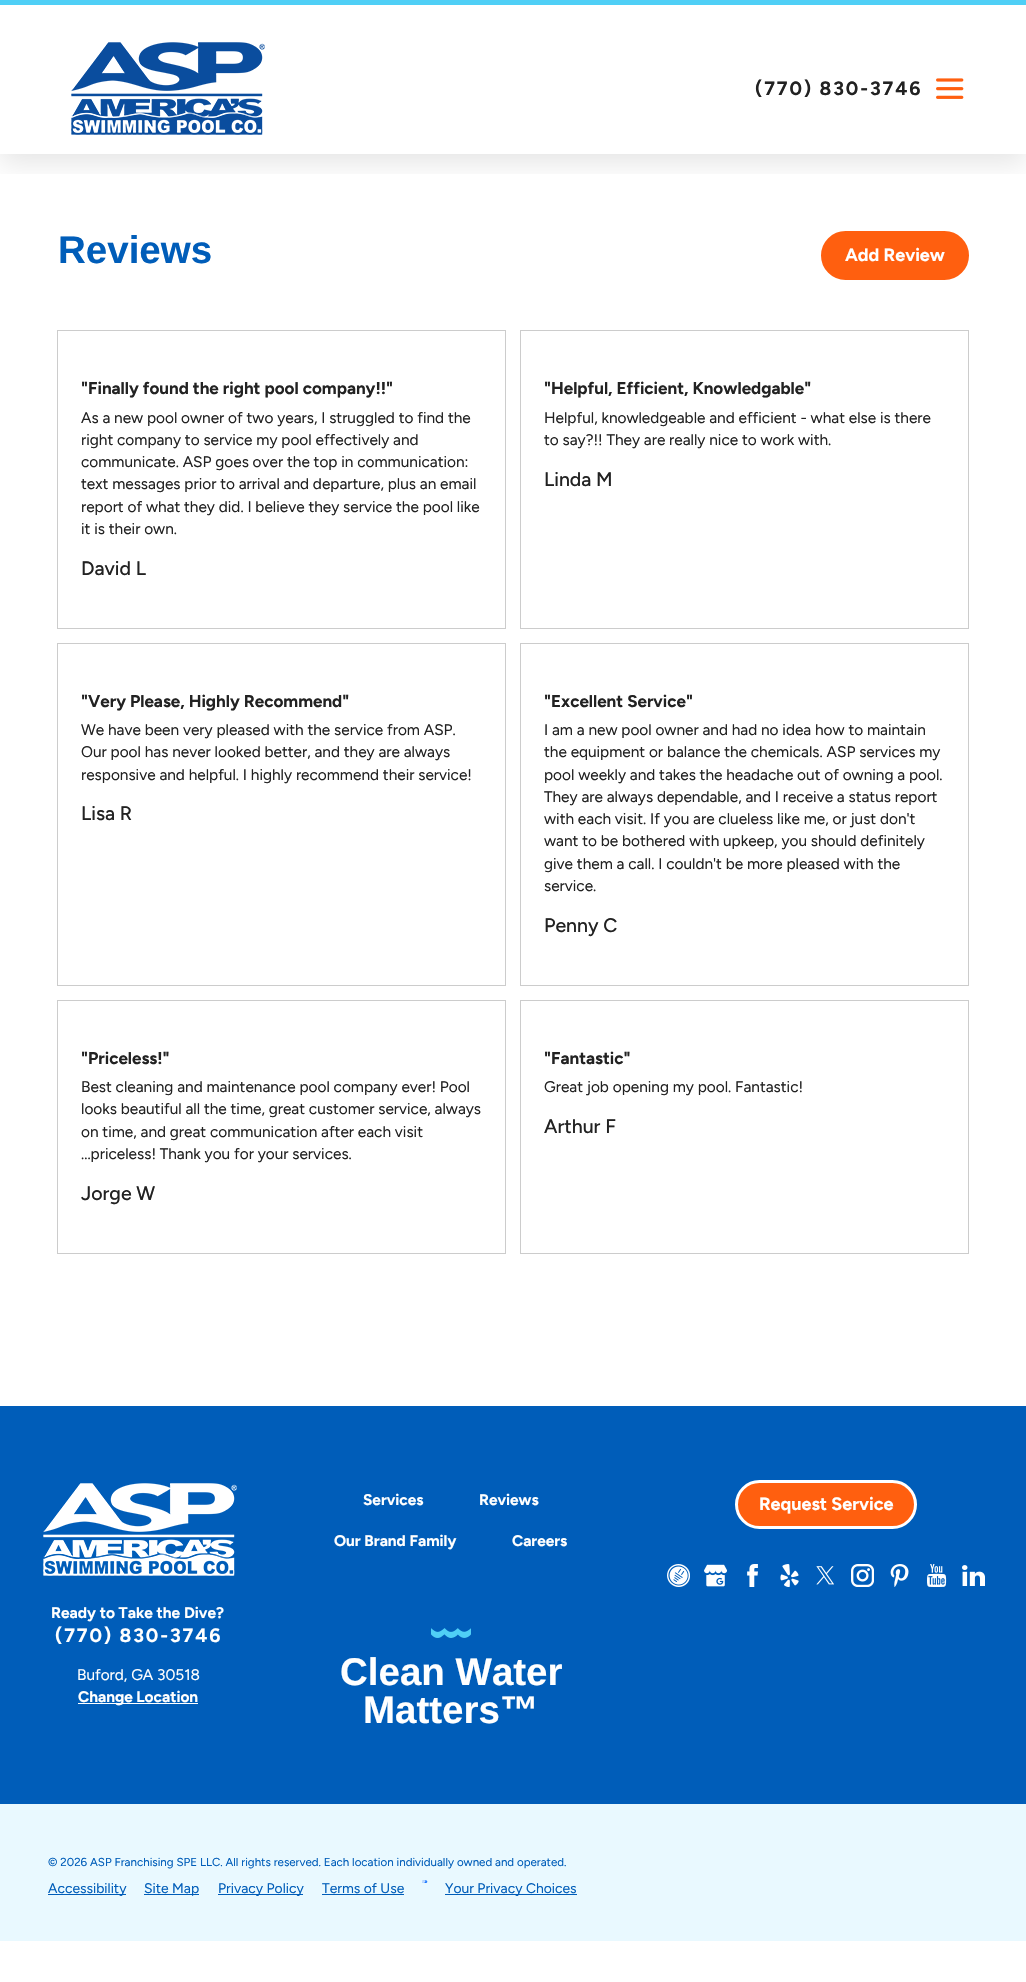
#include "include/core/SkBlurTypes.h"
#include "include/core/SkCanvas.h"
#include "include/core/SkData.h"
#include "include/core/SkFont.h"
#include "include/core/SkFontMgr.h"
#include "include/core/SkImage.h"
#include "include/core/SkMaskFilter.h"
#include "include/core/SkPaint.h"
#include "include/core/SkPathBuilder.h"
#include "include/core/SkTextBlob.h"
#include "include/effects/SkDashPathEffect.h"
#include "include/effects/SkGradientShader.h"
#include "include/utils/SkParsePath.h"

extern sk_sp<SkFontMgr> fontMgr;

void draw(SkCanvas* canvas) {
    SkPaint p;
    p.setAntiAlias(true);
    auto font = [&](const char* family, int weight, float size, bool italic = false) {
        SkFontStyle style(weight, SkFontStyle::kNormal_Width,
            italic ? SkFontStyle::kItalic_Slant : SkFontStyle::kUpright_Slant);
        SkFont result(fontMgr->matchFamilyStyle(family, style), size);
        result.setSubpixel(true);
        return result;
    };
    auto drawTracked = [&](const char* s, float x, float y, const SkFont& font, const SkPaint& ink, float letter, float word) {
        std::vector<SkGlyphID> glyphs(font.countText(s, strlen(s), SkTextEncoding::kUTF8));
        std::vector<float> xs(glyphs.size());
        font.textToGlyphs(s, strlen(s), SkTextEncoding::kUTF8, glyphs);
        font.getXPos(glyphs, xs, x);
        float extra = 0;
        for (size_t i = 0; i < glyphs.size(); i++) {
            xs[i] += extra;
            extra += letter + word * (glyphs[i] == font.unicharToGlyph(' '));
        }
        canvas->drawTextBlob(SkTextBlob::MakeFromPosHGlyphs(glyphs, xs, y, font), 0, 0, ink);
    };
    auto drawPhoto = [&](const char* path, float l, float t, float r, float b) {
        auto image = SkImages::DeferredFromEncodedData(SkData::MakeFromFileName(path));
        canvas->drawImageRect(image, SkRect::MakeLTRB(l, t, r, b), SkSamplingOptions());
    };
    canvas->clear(0xFFFFFFFF);
    canvas->save();
    canvas->clipRect(SkRect::MakeLTRB(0, 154, 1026, 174));
    p.setColor(0x1A000000);
    p.setMaskFilter(SkMaskFilter::MakeBlur(kNormal_SkBlurStyle, 13));
    canvas->drawRect(SkRect::MakeLTRB(0, 9, 1026, 163), p);
    p.setMaskFilter(nullptr);
    canvas->restore();
    p.setColor(0xFF4FCFF6);
    canvas->drawRect(SkRect::MakeLTRB(0, 0, 1026, 5), p);
    drawPhoto("media/1.png", 71, 42, 265, 135);
    auto font1 = font("Figtree", 700, 19.25f);
    p.setColor(0xFF222222);
    drawTracked("(770) 830-3746", 755, 95, font1, p, 1.9f, 0);
    drawPhoto("media/2.png", 936, 78, 964, 99);
    auto font2 = font("Liberation Sans", 700, 38.5f);
    p.setColor(0xFF005DB9);
    canvas->drawString("Reviews", 58, 263, font2, p);
    p.setColor(0xFFFF5F0F);
    canvas->drawRoundRect(SkRect::MakeLTRB(822.5f, 232.5f, 967.5f, 278.5f), 23, 23, p);
    p.setStyle(SkPaint::kStroke_Style);
    p.setStrokeWidth(3);
    canvas->drawRoundRect(SkRect::MakeLTRB(822.5f, 232.5f, 967.5f, 278.5f), 23, 23, p);
    auto font3 = font("Figtree", 700, 18);
    p.setStyle(SkPaint::kFill_Style);
    p.setColor(0xFFFFFFFF);
    canvas->drawString("Add Review", 845, 261, font3, p);
    p.setStyle(SkPaint::kStroke_Style);
    p.setStrokeWidth(1);
    p.setColor(0xFFCCCCCC);
    canvas->drawRect(SkRect::MakeLTRB(57.5f, 330.5f, 505.5f, 628.5f), p);
    auto font4 = font("Figtree", 700, 17);
    p.setStyle(SkPaint::kFill_Style);
    p.setColor(0xFF222222);
    canvas->drawString("\"Finally found the right pool company!!\"", 81, 394, font4, p);
    auto font5 = font("Figtree", 400, 15.4f);
    {
        const struct { const char* s; float x, y; } items[] = {
            {"As a new pool owner of two years, I struggled to find the", 81, 423},
            {"right company to service my pool effectively and", 81, 445},
            {"communicate. ASP goes over the top in communication:", 81, 467},
            {"text messages prior to arrival and departure, plus an email", 81, 489},
            {"report of what they did. I believe they service the pool like", 81, 512},
            {"it is their own.", 81, 534},
        };
        for (auto [s, x, y] : items) {
            canvas->drawString(s, x, y, font5, p);
        }
    }
    auto font6 = font("Figtree", 500, 19.5f);
    canvas->drawString("David L", 81, 575, font6, p);
    p.setStyle(SkPaint::kStroke_Style);
    p.setColor(0xFFCCCCCC);
    canvas->drawRect(SkRect::MakeLTRB(520.5f, 330.5f, 968.5f, 628.5f), p);
    p.setStyle(SkPaint::kFill_Style);
    p.setColor(0xFF222222);
    canvas->drawString("\"Helpful, Efficient, Knowledgable\"", 544, 394, font4, p);
    canvas->drawString("Helpful, knowledgeable and efficient - what else is there", 544, 423, font5, p);
    canvas->drawString("to say?!! They are really nice to work with.", 544, 445, font5, p);
    canvas->drawString("Linda M", 544, 486, font6, p);
    p.setStyle(SkPaint::kStroke_Style);
    p.setColor(0xFFCCCCCC);
    canvas->drawRect(SkRect::MakeLTRB(57.5f, 643.5f, 505.5f, 985.5f), p);
    p.setStyle(SkPaint::kFill_Style);
    p.setColor(0xFF222222);
    canvas->drawString("\"Very Please, Highly Recommend\"", 81, 707, font4, p);
    {
        const struct { const char* s; float x, y; } items[] = {
            {"We have been very pleased with the service from ASP.", 81, 735},
            {"Our pool has never looked better, and they are always", 81, 757},
            {"responsive and helpful. I highly recommend their service!", 81, 780},
        };
        for (auto [s, x, y] : items) {
            canvas->drawString(s, x, y, font5, p);
        }
    }
    canvas->drawString("Lisa R", 81, 820, font6, p);
    p.setStyle(SkPaint::kStroke_Style);
    p.setColor(0xFFCCCCCC);
    canvas->drawRect(SkRect::MakeLTRB(520.5f, 643.5f, 968.5f, 985.5f), p);
    p.setStyle(SkPaint::kFill_Style);
    p.setColor(0xFF222222);
    canvas->drawString("\"Excellent Service\"", 544, 707, font4, p);
    {
        const struct { const char* s; float x, y; } items[] = {
            {"I am a new pool owner and had no idea how to maintain", 544, 735},
            {"the equipment or balance the chemicals. ASP services my", 544, 757},
            {"pool weekly and takes the headache out of owning a pool.", 544, 780},
            {"They are always dependable, and I receive a status report", 544, 802},
            {"with each visit. If you are clueless like me, or just don't", 544, 824},
            {"want to be bothered with upkeep, you should definitely", 544, 846},
            {"give them a call. I couldn't be more pleased with the", 544, 869},
            {"service.", 544, 891},
        };
        for (auto [s, x, y] : items) {
            canvas->drawString(s, x, y, font5, p);
        }
    }
    canvas->drawString("Penny C", 544, 932, font6, p);
    p.setStyle(SkPaint::kStroke_Style);
    p.setColor(0xFFCCCCCC);
    canvas->drawRect(SkRect::MakeLTRB(57.5f, 1000.5f, 505.5f, 1253.5f), p);
    p.setStyle(SkPaint::kFill_Style);
    p.setColor(0xFF222222);
    canvas->drawString("\"Priceless!\"", 81, 1064, font4, p);
    {
        const struct { const char* s; float x, y; } items[] = {
            {"Best cleaning and maintenance pool company ever! Pool", 81, 1092},
            {"looks beautiful all the time, great customer service, always", 81, 1114},
            {"on time, and great communication after each visit", 81, 1137},
            {"...priceless! Thank you for your services.", 81, 1159},
        };
        for (auto [s, x, y] : items) {
            canvas->drawString(s, x, y, font5, p);
        }
    }
    canvas->drawString("Jorge W", 81, 1200, font6, p);
    p.setStyle(SkPaint::kStroke_Style);
    p.setColor(0xFFCCCCCC);
    canvas->drawRect(SkRect::MakeLTRB(520.5f, 1000.5f, 968.5f, 1253.5f), p);
    p.setStyle(SkPaint::kFill_Style);
    p.setColor(0xFF222222);
    canvas->drawString("\"Fantastic\"", 544, 1064, font4, p);
    canvas->drawString("Great job opening my pool. Fantastic!", 544, 1092, font5, p);
    canvas->drawString("Arthur F", 544, 1133, font6, p);
    p.setColor(0xFF005DB9);
    canvas->drawRect(SkRect::MakeLTRB(0, 1406, 1026, 1804), p);
    auto font7 = font("Figtree", 700, 15.4f);
    p.setColor(0xFFFFFFFF);
    {
        const struct { const char* s; float x, y; } items[] = {
            {"Services", 363, 1505},
            {"Reviews", 479, 1505},
            {"Our Brand Family", 334, 1546},
            {"Careers", 512, 1546},
        };
        for (auto [s, x, y] : items) {
            canvas->drawString(s, x, y, font7, p);
        }
    }
    drawPhoto("media/3.png", 431, 1628, 471, 1638);
    canvas->drawString("Clean Water", 340, 1685, font2, p);
    canvas->drawString("Matters™", 363, 1723, font2, p);
    p.setColor(0xFFFF5F0F);
    canvas->drawRoundRect(SkRect::MakeLTRB(736.5f, 1481.5f, 915.5f, 1527.5f), 23, 23, p);
    p.setStyle(SkPaint::kStroke_Style);
    p.setStrokeWidth(3);
    p.setColor(0xFFFFFFFF);
    canvas->drawRoundRect(SkRect::MakeLTRB(736.5f, 1481.5f, 915.5f, 1527.5f), 23, 23, p);
    p.setStyle(SkPaint::kFill_Style);
    canvas->drawString("Request Service", 759, 1510, font3, p);
    drawPhoto("media/4.png", 667, 1564, 690, 1587);
    drawPhoto("media/5.png", 704, 1564, 727, 1587);
    drawPhoto("media/6.png", 747, 1564, 758, 1587);
    drawPhoto("media/7.png", 780, 1564, 799, 1587);
    drawPhoto("media/8.png", 816, 1566, 834, 1585);
    drawPhoto("media/9.png", 851, 1564, 874, 1587);
    drawPhoto("media/10.png", 890, 1564, 909, 1587);
    drawPhoto("media/11.png", 927, 1564, 947, 1587);
    drawPhoto("media/12.png", 962, 1565, 985, 1586);
    drawPhoto("media/13.png", 43, 1483, 237, 1576);
    auto font8 = font("Figtree", 700, 15.5f);
    canvas->drawString("Ready to Take the Dive?", 51, 1618, font8, p);
    drawTracked("(770) 830-3746", 55, 1642, font1, p, 1.9f, 0);
    canvas->drawString("Buford, GA 30518", 77, 1680, font5, p);
    canvas->drawRect(SkRect::MakeLTRB(78, 1703, 198, 1704), p);
    canvas->drawString("Change Location", 78, 1702, font7, p);
    p.setColor(0xFFE9F9FF);
    canvas->drawRect(SkRect::MakeLTRB(0, 1804, 1026, 1941), p);
    auto font9 = font("Figtree", 400, 11.55f);
    p.setColor(0xFF005DB9);
    canvas->drawString("© 2026 ASP Franchising SPE LLC. All rights reserved. Each location individually owned and operated.", 48, 1866, font9, p);
    canvas->drawRect(SkRect::MakeLTRB(48, 1894, 126, 1895), p);
    auto font10 = font("Figtree", 400, 13.9f);
    canvas->drawString("Accessibility", 48, 1893, font10, p);
    canvas->drawRect(SkRect::MakeLTRB(144, 1894, 199, 1895), p);
    canvas->drawString("Site Map", 144, 1893, font10, p);
    canvas->drawRect(SkRect::MakeLTRB(218, 1894, 303, 1895), p);
    canvas->drawString("Privacy Policy", 218, 1893, font10, p);
    canvas->drawString("Terms of Use", 322, 1893, font10, p);
    canvas->drawRect(SkRect::MakeLTRB(322, 1894, 404, 1895), p);
    drawPhoto("media/14.png", 422, 1880, 428, 1883);
    canvas->drawRect(SkRect::MakeLTRB(445, 1894, 577, 1895), p);
    canvas->drawString("Your Privacy Choices", 445, 1893, font10, p);
}
